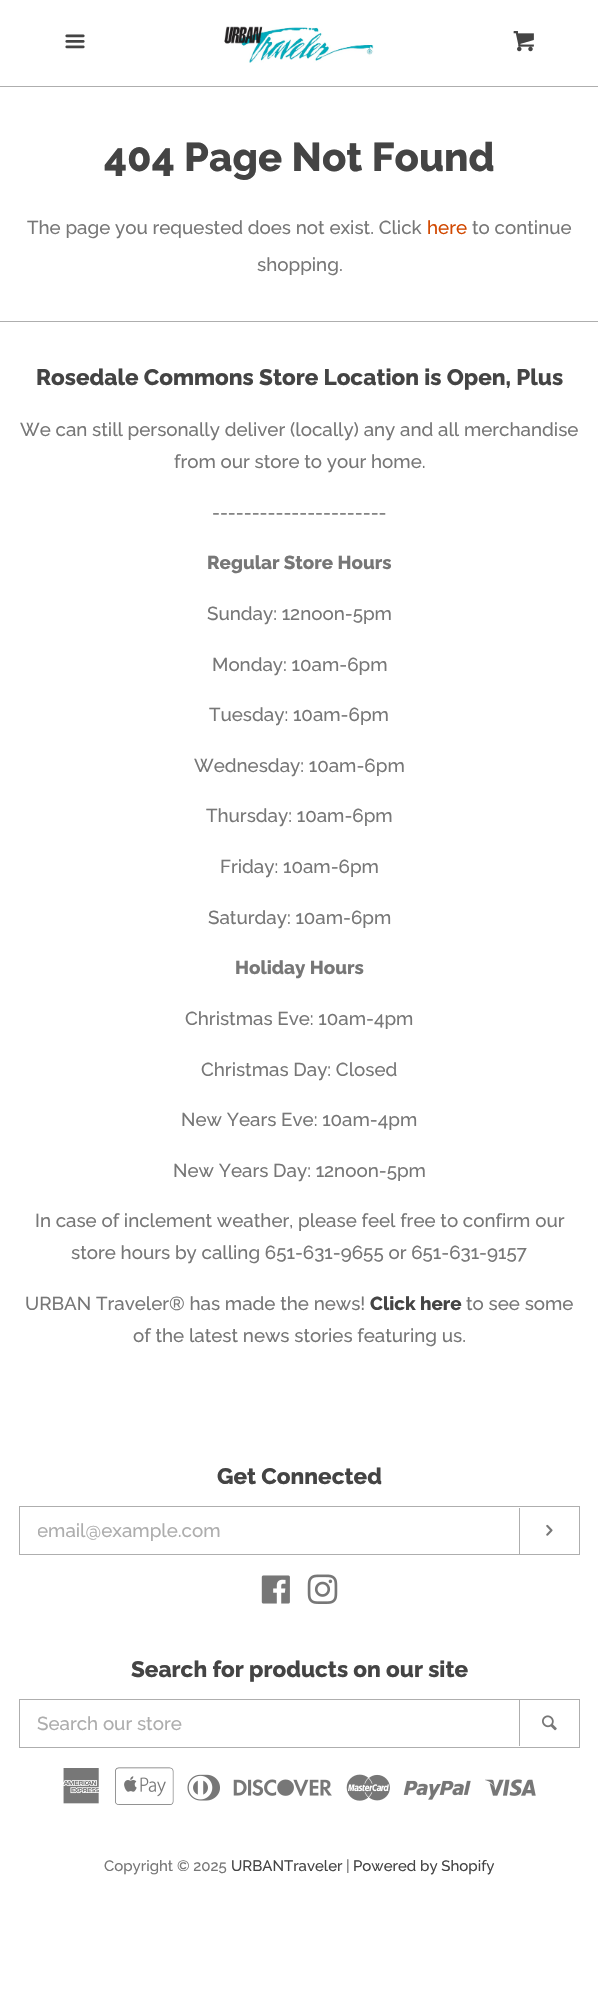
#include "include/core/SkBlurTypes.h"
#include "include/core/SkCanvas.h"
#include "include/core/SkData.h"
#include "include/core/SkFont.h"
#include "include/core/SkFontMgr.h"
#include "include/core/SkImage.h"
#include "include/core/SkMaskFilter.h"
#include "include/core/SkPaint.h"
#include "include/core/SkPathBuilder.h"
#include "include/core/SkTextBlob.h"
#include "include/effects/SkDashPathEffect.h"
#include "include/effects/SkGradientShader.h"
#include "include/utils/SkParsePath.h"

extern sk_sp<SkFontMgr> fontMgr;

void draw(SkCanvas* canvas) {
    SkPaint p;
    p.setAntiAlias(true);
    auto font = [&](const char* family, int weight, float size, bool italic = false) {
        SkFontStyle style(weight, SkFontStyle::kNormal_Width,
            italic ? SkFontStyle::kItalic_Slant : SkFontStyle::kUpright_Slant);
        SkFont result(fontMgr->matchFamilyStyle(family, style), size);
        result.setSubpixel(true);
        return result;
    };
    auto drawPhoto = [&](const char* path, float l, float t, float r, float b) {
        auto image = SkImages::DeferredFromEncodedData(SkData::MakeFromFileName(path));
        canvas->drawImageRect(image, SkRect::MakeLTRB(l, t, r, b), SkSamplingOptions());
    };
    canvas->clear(0xFFFFFFFF);
    p.setColor(0xFFAEAEAE);
    canvas->drawRect(SkRect::MakeLTRB(0, 86, 598, 87), p);
    drawPhoto("media/1.png", 65, 34, 85, 49);
    drawPhoto("media/2.png", 224, 26, 374, 63);
    drawPhoto("media/3.png", 513, 31, 534, 52);
    auto font1 = font("Raleway", 800, 40);
    p.setColor(0xFF444444);
    canvas->drawString("404 Page Not Found", 104, 171, font1, p);
    auto font2 = font("Raleway", 500, 18.75f);
    p.setColor(0xFF777777);
    canvas->drawString("The page you requested does not exist. Click", 27, 234, font2, p);
    p.setColor(0xFFD14800);
    canvas->drawString("here", 427, 234, font2, p);
    p.setColor(0xFF777777);
    canvas->drawString("to continue", 472, 234, font2, p);
    canvas->drawString("shopping.", 257, 271, font2, p);
    p.setColor(0xFFAEAEAE);
    canvas->drawRect(SkRect::MakeLTRB(0, 321, 598, 322), p);
    auto font3 = font("Raleway", 800, 22.5f);
    p.setColor(0xFF444444);
    canvas->drawString("Rosedale Commons Store Location is Open, Plus", 36, 385, font3, p);
    p.setColor(0xFF777777);
    {
        const struct { const char* s; float x, y; } items[] = {
            {"We can still personally deliver (locally) any and all merchandise", 20, 436},
            {"from our store to your home.", 174, 468},
            {"----------------------", 212, 519},
        };
        for (auto [s, x, y] : items) {
            canvas->drawString(s, x, y, font2, p);
        }
    }
    auto font4 = font("Raleway", 800, 18.75f);
    canvas->drawString("Regular Store Hours", 207, 569, font4, p);
    {
        const struct { const char* s; float x, y; } items[] = {
            {"Sunday: 12noon-5pm", 207, 620},
            {"Monday: 10am-6pm", 212, 671},
            {"Tuesday: 10am-6pm", 209, 721},
            {"Wednesday: 10am-6pm", 194, 772},
            {"Thursday: 10am-6pm", 206, 822},
            {"Friday: 10am-6pm", 220, 873},
            {"Saturday: 10am-6pm", 208, 924},
        };
        for (auto [s, x, y] : items) {
            canvas->drawString(s, x, y, font2, p);
        }
    }
    canvas->drawString("Holiday Hours", 235, 974, font4, p);
    {
        const struct { const char* s; float x, y; } items[] = {
            {"Christmas Eve: 10am-4pm", 185, 1025},
            {"Christmas Day: Closed", 201, 1076},
            {"New Years Eve: 10am-4pm", 181, 1126},
            {"New Years Day: 12noon-5pm", 173, 1177},
            {"In case of inclement weather, please feel free to confirm our", 35, 1227},
            {"store hours by calling 651-631-9655 or 651-631-9157", 71, 1259},
            {"URBAN Traveler® has made the news!", 25, 1310},
        };
        for (auto [s, x, y] : items) {
            canvas->drawString(s, x, y, font2, p);
        }
    }
    p.setColor(0xFF444444);
    canvas->drawString("Click here", 370, 1310, font4, p);
    p.setColor(0xFF777777);
    canvas->drawString("to see some", 466, 1310, font2, p);
    canvas->drawString("of the latest news stories featuring us.", 133, 1342, font2, p);
    p.setColor(0xFF444444);
    canvas->drawString("Get Connected", 217, 1484, font3, p);
    p.setStyle(SkPaint::kStroke_Style);
    p.setStrokeWidth(1);
    p.setColor(0xFFAEAEAE);
    canvas->drawRect(SkRect::MakeLTRB(19.5f, 1506.5f, 579.5f, 1554.5f), p);
    p.setStyle(SkPaint::kFill_Style);
    canvas->drawRect(SkRect::MakeLTRB(519, 1508, 520, 1554), p);
    canvas->save();
    canvas->clipRect(SkRect::MakeLTRB(38, 1520, 503, 1543));
    p.setColor(0xFFADADAD);
    canvas->drawString("email@example.com", 37, 1537, font2, p);
    canvas->restore();
    drawPhoto("media/4.png", 546, 1524, 553, 1536);
    drawPhoto("media/5.png", 261, 1575, 290, 1604);
    drawPhoto("media/6.png", 307, 1574, 338, 1604);
    p.setColor(0xFF444444);
    canvas->drawString("Search for products on our site", 131, 1677, font3, p);
    p.setStyle(SkPaint::kStroke_Style);
    p.setColor(0xFFAEAEAE);
    canvas->drawRect(SkRect::MakeLTRB(19.5f, 1699.5f, 579.5f, 1747.5f), p);
    p.setStyle(SkPaint::kFill_Style);
    canvas->drawRect(SkRect::MakeLTRB(519, 1700, 520, 1746), p);
    p.setColor(0xFFADADAD);
    canvas->drawString("Search our store", 37, 1730, font2, p);
    drawPhoto("media/7.png", 542, 1715, 557, 1731);
    drawPhoto("media/8.png", 63, 1768, 99, 1804);
    drawPhoto("media/9.png", 115, 1767, 174, 1805);
    drawPhoto("media/10.png", 187, 1774, 220, 1801);
    drawPhoto("media/11.png", 233, 1779, 332, 1796);
    drawPhoto("media/12.png", 346, 1774, 390, 1801);
    drawPhoto("media/13.png", 403, 1780, 471, 1800);
    drawPhoto("media/14.png", 485, 1779, 536, 1796);
    auto font5 = font("Raleway", 500, 15);
    p.setColor(0xFF777777);
    canvas->drawString("Copyright © 2025", 104, 1871, font5, p);
    p.setColor(0xFF444444);
    canvas->drawString("URBANTraveler", 231, 1871, font5, p);
    p.setColor(0xFF777777);
    canvas->drawString("|", 346, 1871, font5, p);
    p.setColor(0xFF444444);
    canvas->drawString("Powered by Shopify", 353, 1871, font5, p);
}
